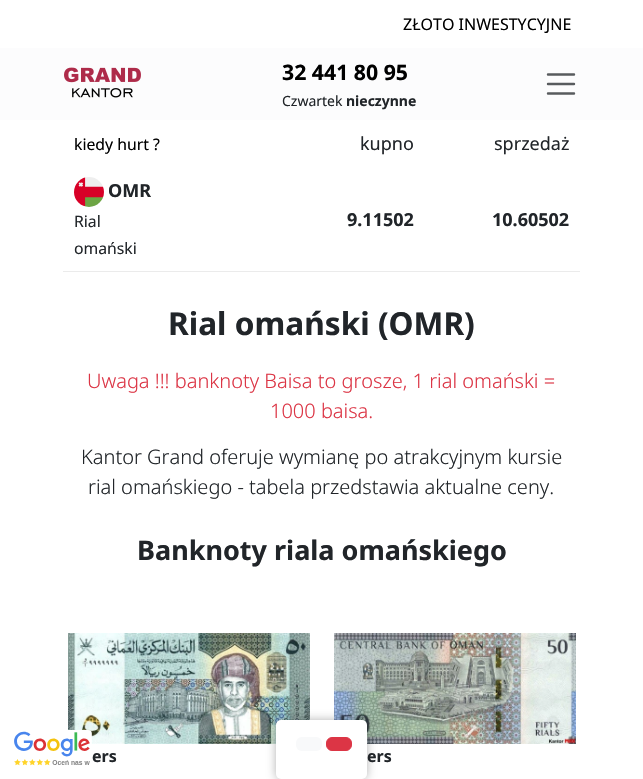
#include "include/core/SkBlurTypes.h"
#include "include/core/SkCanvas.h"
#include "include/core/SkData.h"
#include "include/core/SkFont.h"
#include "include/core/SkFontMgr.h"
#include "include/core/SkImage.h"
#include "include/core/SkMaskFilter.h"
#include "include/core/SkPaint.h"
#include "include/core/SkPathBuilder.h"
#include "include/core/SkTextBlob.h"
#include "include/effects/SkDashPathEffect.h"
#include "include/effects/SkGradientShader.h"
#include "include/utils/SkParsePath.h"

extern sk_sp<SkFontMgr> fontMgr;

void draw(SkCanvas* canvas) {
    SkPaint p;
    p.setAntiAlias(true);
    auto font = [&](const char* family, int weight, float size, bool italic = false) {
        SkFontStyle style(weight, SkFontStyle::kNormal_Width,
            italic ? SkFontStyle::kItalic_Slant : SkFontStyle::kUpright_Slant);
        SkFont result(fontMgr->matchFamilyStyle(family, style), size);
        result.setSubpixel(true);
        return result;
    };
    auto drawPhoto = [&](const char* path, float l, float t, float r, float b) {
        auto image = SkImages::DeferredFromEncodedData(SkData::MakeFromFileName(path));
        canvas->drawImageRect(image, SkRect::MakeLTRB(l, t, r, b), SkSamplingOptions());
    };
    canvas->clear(0xFFFFFFFF);
    auto font1 = font("Noto Sans", 400, 16);
    p.setColor(0xFF000000);
    canvas->drawString("ZŁOTO INWESTYCYJNE", 403, 30, font1, p);
    p.setColor(0xFFFCFCFD);
    canvas->drawRect(SkRect::MakeLTRB(0, 48, 643, 120), p);
    drawPhoto("media/1.png", 64, 67, 141, 98);
    auto font2 = font("Noto Sans", 700, 21.25f);
    p.setColor(0xFF000000);
    canvas->drawString("32 441 80 95", 282, 80, font2, p);
    auto font3 = font("Noto Sans", 400, 14);
    p.setColor(0xFF212529);
    canvas->drawString("Czwartek", 282, 106, font3, p);
    auto font4 = font("Noto Sans", 700, 14);
    canvas->drawString("nieczynne", 346, 106, font4, p);
    p.setStyle(SkPaint::kStroke_Style);
    p.setStrokeWidth(2.4f);
    p.setStrokeCap(SkPaint::kRound_Cap);
    p.setColor(0xFF585B5E);
    canvas->drawPath(SkPathBuilder().moveTo(548, 74.5f).lineTo(574, 74.5f).moveTo(548, 84).lineTo(574, 84).moveTo(548, 93.5f).lineTo(574, 93.5f).detach(), p);
    auto font5 = font("Noto Sans", 400, 15.75f);
    p.setStyle(SkPaint::kFill_Style);
    p.setColor(0xFF000000);
    canvas->drawString("kiedy hurt ?", 74, 150, font5, p);
    auto font6 = font("Noto Sans", 400, 18);
    p.setColor(0xFF212529);
    canvas->drawString("kupno", 360, 150, font6, p);
    canvas->drawString("sprzedaż", 494, 150, font6, p);
    p.setColor(0xFFEBEBEB);
    canvas->drawRect(SkRect::MakeLTRB(63, 271, 580, 272), p);
    drawPhoto("media/2.png", 74, 177, 104, 207);
    auto font7 = font("Noto Sans", 700, 18);
    p.setColor(0xFF212529);
    canvas->drawString("OMR", 108, 197, font7, p);
    canvas->drawString("Rial", 74, 227, font5, p);
    canvas->drawString("omański", 74, 254, font5, p);
    canvas->drawString("9.11502", 347, 226, font7, p);
    canvas->drawString("10.60502", 492, 226, font7, p);
    auto font8 = font("Noto Sans", 700, 31.6f);
    canvas->drawString("Rial omański (OMR)", 168, 335, font8, p);
    auto font9 = font("Noto Sans", 300, 20);
    p.setColor(0xFFDC3545);
    canvas->drawString("Uwaga !!! banknoty Baisa to grosze, 1 rial omański =", 87, 388, font9, p);
    canvas->drawString("1000 baisa.", 270, 418, font9, p);
    p.setColor(0xFF212529);
    canvas->drawString("Kantor Grand oferuje wymianę po atrakcyjnym kursie", 81, 464, font9, p);
    canvas->drawString("rial omańskiego - tabela przedstawia aktualne ceny.", 88, 494, font9, p);
    auto font10 = font("Noto Sans", 700, 27);
    canvas->drawString("Banknoty riala omańskiego", 137, 560, font10, p);
    drawPhoto("media/4.png", 68, 633, 310, 744);
    drawPhoto("media/3.png", 14, 730, 92, 766);
    drawPhoto("media/5.png", 334, 633, 576, 744);
    p.setColor(0x4D000000);
    p.setMaskFilter(SkMaskFilter::MakeBlur(kNormal_SkBlurStyle, 5));
    canvas->drawRoundRect(SkRect::MakeLTRB(276, 720, 367, 779), 5, 5, p);
    p.setMaskFilter(nullptr);
    p.setColor(0xFFFFFFFF);
    canvas->drawRoundRect(SkRect::MakeLTRB(276, 720, 367, 779), 5, 5, p);
    p.setColor(0xFFF8F9FA);
    canvas->drawRoundRect(SkRect::MakeLTRB(296, 737, 322, 751), 6, 6, p);
    p.setColor(0xFFDC3545);
    canvas->drawRoundRect(SkRect::MakeLTRB(326.5f, 737.5f, 351.5f, 750.5f), 5.5f, 5.5f, p);
    p.setStyle(SkPaint::kStroke_Style);
    p.setStrokeWidth(1);
    p.setStrokeCap(SkPaint::kButt_Cap);
    canvas->drawRoundRect(SkRect::MakeLTRB(326.5f, 737.5f, 351.5f, 750.5f), 5.5f, 5.5f, p);
    auto font11 = font("Noto Sans", 700, 16);
    p.setStyle(SkPaint::kFill_Style);
    p.setColor(0xFF212529);
    canvas->drawString("ers", 92, 762, font11, p);
    canvas->drawString("ers", 367, 762, font11, p);
}
